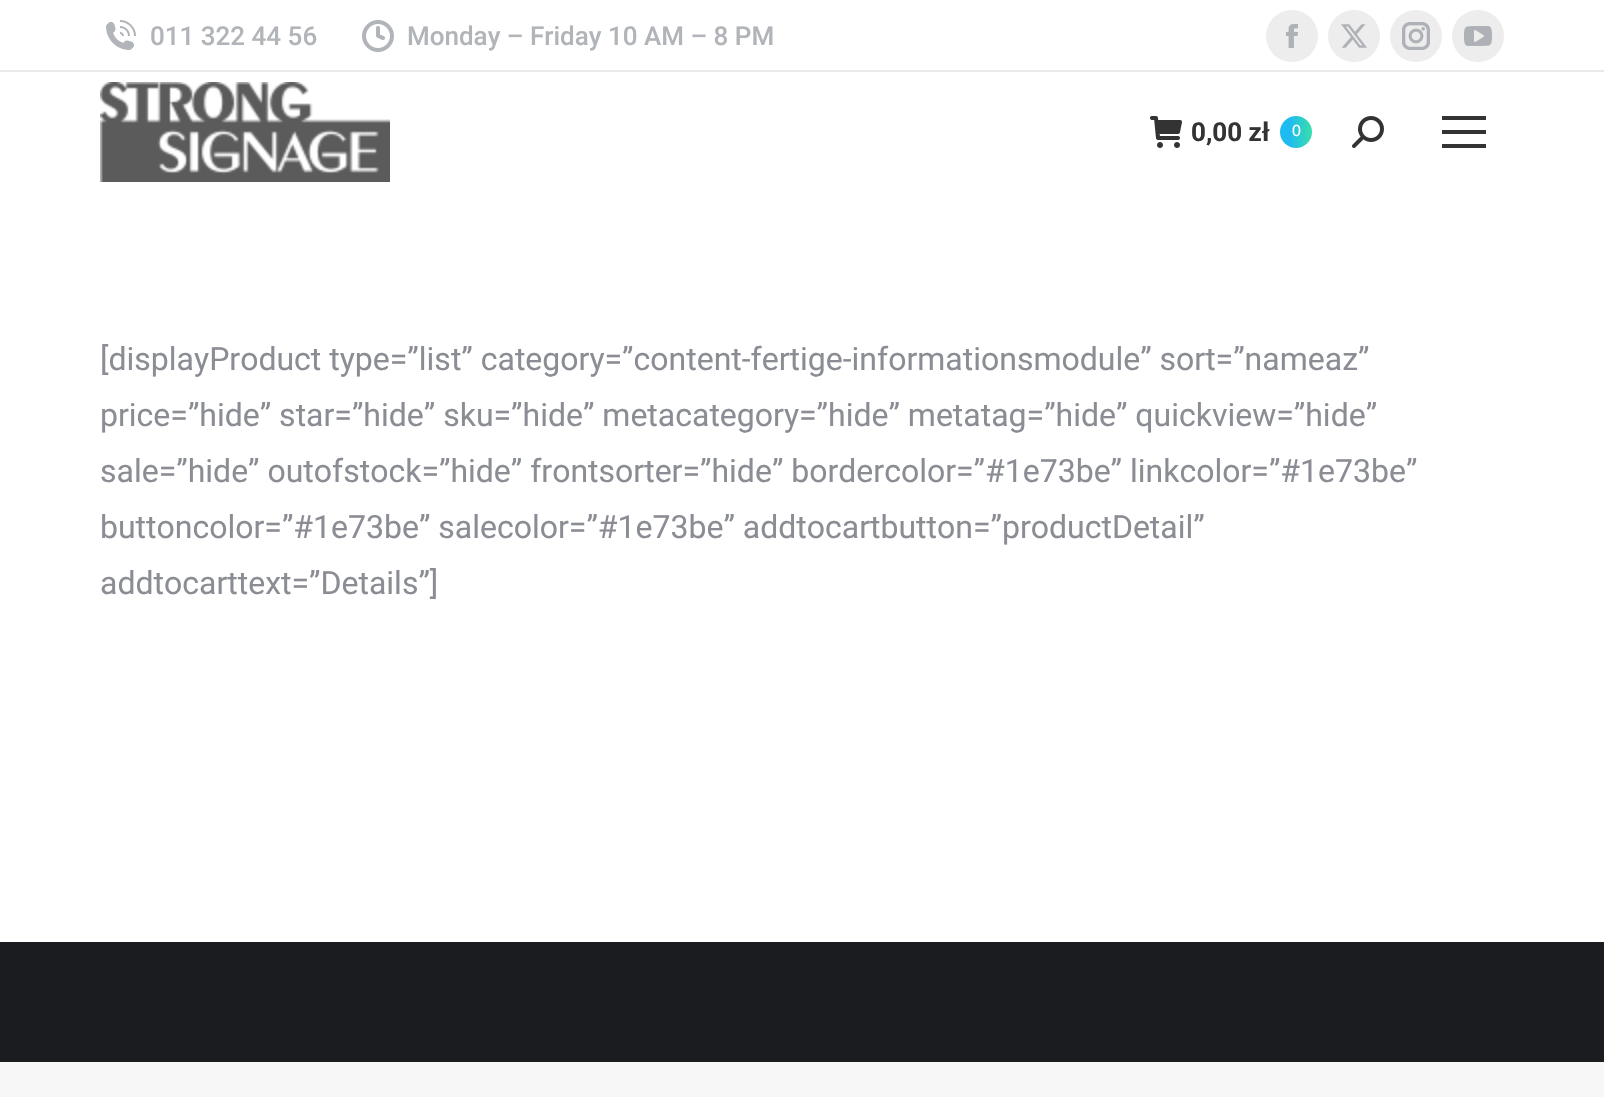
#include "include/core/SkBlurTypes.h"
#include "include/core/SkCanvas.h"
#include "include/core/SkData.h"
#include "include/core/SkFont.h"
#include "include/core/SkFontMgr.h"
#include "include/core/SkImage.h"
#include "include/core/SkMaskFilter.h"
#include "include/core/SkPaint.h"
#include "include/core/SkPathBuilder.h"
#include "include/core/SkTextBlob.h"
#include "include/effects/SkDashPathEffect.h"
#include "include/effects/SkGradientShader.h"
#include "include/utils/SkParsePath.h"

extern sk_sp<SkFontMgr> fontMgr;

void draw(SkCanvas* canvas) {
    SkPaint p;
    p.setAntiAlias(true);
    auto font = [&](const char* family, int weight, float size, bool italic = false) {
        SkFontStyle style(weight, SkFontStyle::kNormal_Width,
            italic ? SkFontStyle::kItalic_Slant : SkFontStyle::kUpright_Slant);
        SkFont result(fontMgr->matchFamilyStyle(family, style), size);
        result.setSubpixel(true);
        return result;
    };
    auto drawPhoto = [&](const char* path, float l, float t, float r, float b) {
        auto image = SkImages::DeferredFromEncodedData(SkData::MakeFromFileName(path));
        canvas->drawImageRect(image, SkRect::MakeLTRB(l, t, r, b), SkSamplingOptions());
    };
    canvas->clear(0xFFF7F7F7);
    p.setColor(0xFFFFFFFF);
    canvas->drawRect(SkRect::MakeLTRB(0, 0, 1604, 942), p);
    drawPhoto("media/1.png", 106, 20, 136, 50);
    auto font1 = font("Roboto", 500, 26);
    p.setColor(0xFFB1B4B8);
    canvas->drawString("011 322 44 56", 150, 45, font1, p);
    drawPhoto("media/2.png", 362, 20, 394, 52);
    canvas->drawString("Monday – Friday 10 AM – 8 PM", 407, 45, font1, p);
    p.setColor(0xFFEDEDED);
    canvas->drawCircle(1292, 36, 26, p);
    drawPhoto("media/3.png", 1286, 24, 1298, 48);
    canvas->drawCircle(1354, 36, 26, p);
    drawPhoto("media/4.png", 1341, 24, 1367, 48);
    canvas->drawCircle(1416, 36, 26, p);
    drawPhoto("media/5.png", 1402, 22, 1430, 50);
    canvas->drawCircle(1478, 36, 26, p);
    drawPhoto("media/6.png", 1464, 26, 1492, 46);
    p.setColor(0xFFE9E9E9);
    canvas->drawRect(SkRect::MakeLTRB(0, 70, 1604, 72), p);
    drawPhoto("media/7.png", 100, 82, 390, 182);
    drawPhoto("media/8.png", 1150, 116, 1182, 148);
    auto font2 = font("Roboto", 700, 26);
    p.setColor(0xFF333333);
    canvas->drawString("0,00 zł", 1191, 141, font2, p);
    {
        const SkColor colors[] = {0xFF1EBBF0, 0xFF39DFAA};
        const float stops[] = {0.3f, 1};
        const SkPoint ends[] = {{1280, 132}, {1312, 132}};
        p.setShader(SkGradientShader::MakeLinear(ends, colors, stops, 2, SkTileMode::kClamp));
        p.setAlpha(255);
    }
    canvas->drawCircle(1296, 132, 16, p);
    auto font3 = font("Liberation Sans", 400, 16);
    p.setShader(nullptr);
    p.setColor(0xFFFFFFFF);
    canvas->drawString("0", 1292, 136, font3, p);
    drawPhoto("media/9.png", 1352, 116, 1384, 148);
    {
        const struct { float l, t, r, b; SkColor color; } items[] = {
            {1442, 116, 1486, 120, 0xFF333333},
            {1442, 130, 1486, 134, 0xFF333333},
            {1442, 144, 1486, 148, 0xFF333333},
        };
        for (auto [l, t, r, b, color] : items) {
            p.setColor(color);
            canvas->drawRect(SkRect::MakeLTRB(l, t, r, b), p);
        }
    }
    auto font4 = font("Roboto", 400, 32);
    p.setColor(0xFF8B8D94);
    {
        const struct { const char* s; float x, y; } items[] = {
            {"[displayProduct type=”list” category=”content-fertige-informationsmodule” sort=”nameaz”", 100, 370},
            {"price=”hide” star=”hide” sku=”hide” metacategory=”hide” metatag=”hide” quickview=”hide”", 100, 426},
            {"sale=”hide” outofstock=”hide” frontsorter=”hide” bordercolor=”#1e73be” linkcolor=”#1e73be”", 100, 482},
            {"buttoncolor=”#1e73be” salecolor=”#1e73be” addtocartbutton=”productDetail”", 100, 538},
            {"addtocarttext=”Details”]", 100, 594},
        };
        for (auto [s, x, y] : items) {
            canvas->drawString(s, x, y, font4, p);
        }
    }
    p.setColor(0xFF1A1C20);
    canvas->drawRect(SkRect::MakeLTRB(0, 942, 1604, 1062), p);
}
